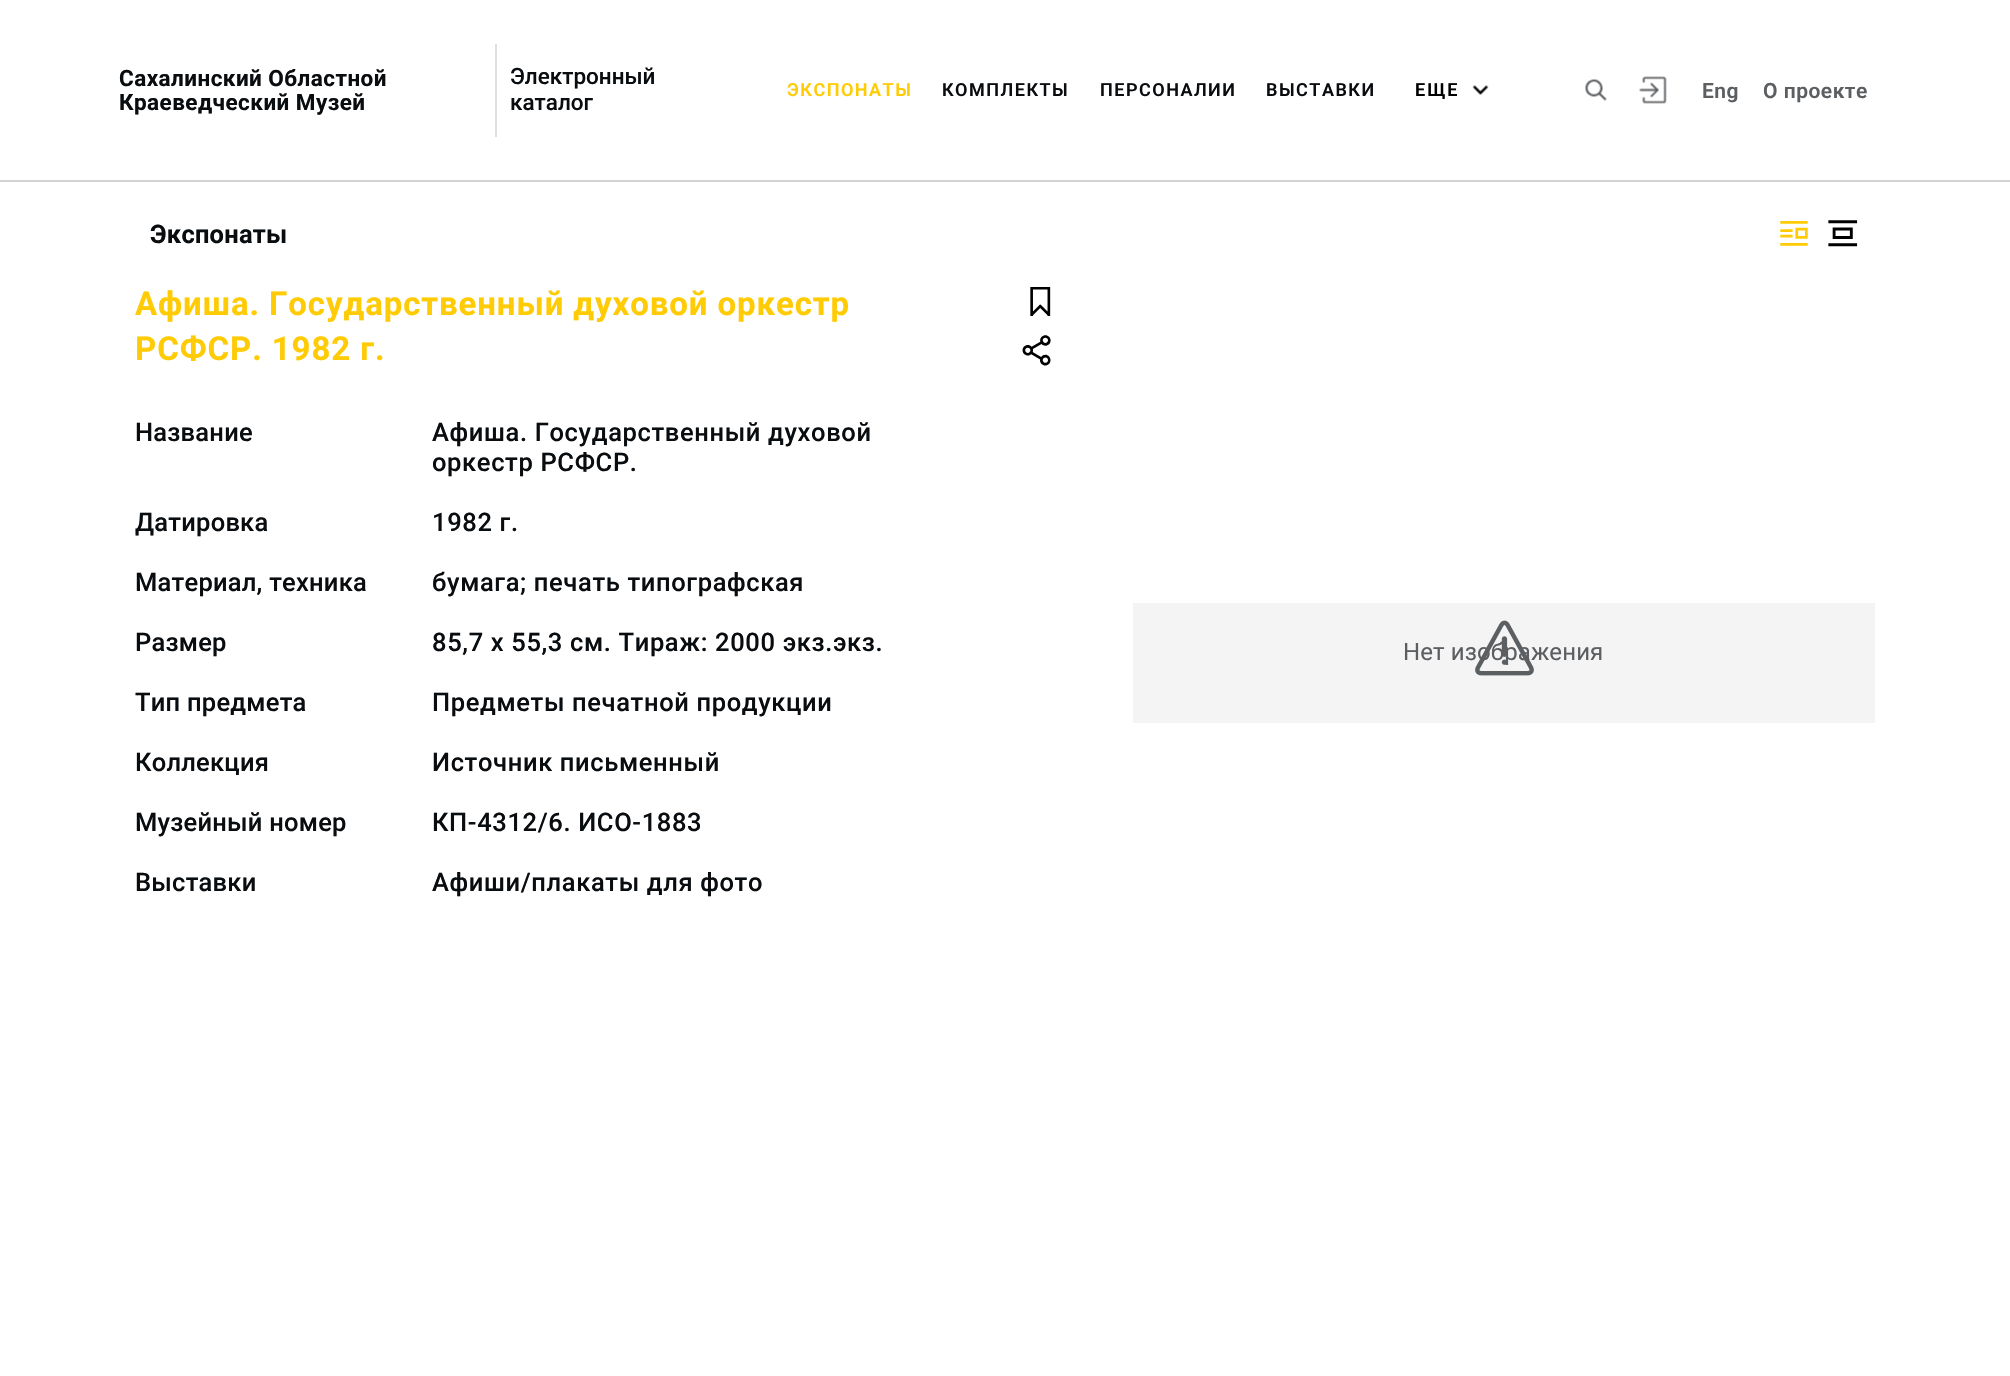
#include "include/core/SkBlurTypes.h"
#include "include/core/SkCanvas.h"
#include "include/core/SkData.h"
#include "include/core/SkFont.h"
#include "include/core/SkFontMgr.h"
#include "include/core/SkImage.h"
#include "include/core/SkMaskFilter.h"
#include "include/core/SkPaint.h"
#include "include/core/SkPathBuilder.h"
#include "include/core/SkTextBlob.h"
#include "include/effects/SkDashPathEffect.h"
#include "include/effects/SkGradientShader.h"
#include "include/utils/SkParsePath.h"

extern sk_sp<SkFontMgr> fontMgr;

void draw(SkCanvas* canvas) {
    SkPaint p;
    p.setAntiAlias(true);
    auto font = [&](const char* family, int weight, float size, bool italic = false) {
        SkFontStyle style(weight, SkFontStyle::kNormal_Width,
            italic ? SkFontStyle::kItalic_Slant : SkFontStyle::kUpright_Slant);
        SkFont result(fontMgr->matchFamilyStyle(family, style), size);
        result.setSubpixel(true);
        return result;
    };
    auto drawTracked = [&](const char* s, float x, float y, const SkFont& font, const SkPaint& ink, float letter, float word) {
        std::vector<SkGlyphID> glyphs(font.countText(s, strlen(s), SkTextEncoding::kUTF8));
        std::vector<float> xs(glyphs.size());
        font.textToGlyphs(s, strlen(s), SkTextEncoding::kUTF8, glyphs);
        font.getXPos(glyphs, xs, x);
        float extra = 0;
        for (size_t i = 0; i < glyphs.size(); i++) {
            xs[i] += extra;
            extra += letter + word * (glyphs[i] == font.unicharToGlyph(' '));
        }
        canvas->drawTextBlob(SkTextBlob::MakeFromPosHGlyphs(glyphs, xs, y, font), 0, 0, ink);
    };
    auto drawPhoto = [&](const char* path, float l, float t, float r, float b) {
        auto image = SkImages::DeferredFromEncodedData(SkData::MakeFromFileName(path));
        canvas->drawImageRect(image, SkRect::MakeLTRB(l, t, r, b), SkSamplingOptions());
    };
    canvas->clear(0xFFFFFFFF);
    p.setColor(0xFFD3D3D3);
    canvas->drawRect(SkRect::MakeLTRB(0, 180, 2010, 182), p);
    auto font1 = font("Roboto", 700, 22.5f);
    p.setColor(0xFF0A0D10);
    drawTracked("Сахалинский Областной", 119, 86, font1, p, 0.45f, 0);
    drawTracked("Краеведческий Музей", 119, 110, font1, p, 0.45f, 0);
    p.setColor(0xFFDEDEDE);
    canvas->drawRect(SkRect::MakeLTRB(495, 44, 497, 137), p);
    auto font2 = font("Roboto", 500, 22.5f);
    p.setColor(0xFF0A0D10);
    canvas->drawString("Электронный", 510, 84, font2, p);
    canvas->drawString("каталог", 510, 110, font2, p);
    auto font3 = font("Roboto", 600, 18);
    p.setColor(0xFFFFCB04);
    drawTracked("ЭКСПОНАТЫ", 787, 96, font3, p, 1.5f, 0);
    p.setColor(0xFF0A0D10);
    {
        const struct { const char* s; float x, y; } items[] = {
            {"КОМПЛЕКТЫ", 942, 96},
            {"ПЕРСОНАЛИИ", 1100, 96},
            {"ВЫСТАВКИ", 1266, 96},
        };
        for (auto [s, x, y] : items) {
            drawTracked(s, x, y, font3, p, 1.5f, 0);
        }
    }
    p.setColor(0xFF000000);
    drawTracked("ЕЩЕ", 1415, 96, font3, p, 2, 0);
    drawPhoto("media/1.png", 1472, 85, 1489, 95);
    drawPhoto("media/2.png", 1585, 79, 1607, 101);
    drawPhoto("media/3.png", 1639, 76, 1667, 104);
    auto font4 = font("Roboto", 600, 21);
    p.setColor(0xFF5C5F62);
    drawTracked("Eng", 1702, 98, font4, p, 0.5f, 0);
    drawTracked("О проекте", 1763, 98, font4, p, 0.5f, 0);
    auto font5 = font("Roboto", 700, 25.5f);
    p.setColor(0xFF0A0D10);
    drawTracked("Экспонаты", 150, 243, font5, p, 0.25f, 0);
    drawPhoto("media/4.png", 1780, 221, 1808, 246);
    drawPhoto("media/5.png", 1828, 220, 1858, 247);
    auto font6 = font("Roboto", 700, 33);
    p.setColor(0xFFFFCB04);
    drawTracked("Афиша. Государственный духовой оркестр", 135, 315, font6, p, 0.9f, 0);
    drawTracked("РСФСР. 1982 г.", 135, 360, font6, p, 0.9f, 0);
    drawPhoto("media/6.png", 1030, 287, 1051, 316);
    drawPhoto("media/7.png", 1022, 335, 1051, 366);
    auto font7 = font("Roboto", 500, 25.5f);
    p.setColor(0xFF0A0D10);
    drawTracked("Название", 135, 441, font7, p, 0.25f, 0);
    drawTracked("Афиша. Государственный духовой", 432, 441, font7, p, 0.65f, 0);
    drawTracked("оркестр РСФСР.", 432, 471, font7, p, 0.65f, 0);
    drawTracked("Датировка", 135, 531, font7, p, 0.25f, 0);
    drawTracked("1982 г.", 432, 531, font7, p, 0.65f, 0);
    drawTracked("Материал, техника", 135, 591, font7, p, 0.25f, 0);
    drawTracked("бумага; печать типографская", 432, 591, font7, p, 0.65f, 0);
    drawTracked("Размер", 135, 651, font7, p, 0.25f, 0);
    drawTracked("85,7 х 55,3 см. Тираж: 2000 экз.экз.", 432, 651, font7, p, 0.65f, 0);
    drawTracked("Тип предмета", 135, 711, font7, p, 0.25f, 0);
    drawTracked("Предметы печатной продукции", 432, 711, font7, p, 0.65f, 0);
    drawTracked("Коллекция", 135, 771, font7, p, 0.25f, 0);
    drawTracked("Источник письменный", 432, 771, font7, p, 0.65f, 0);
    drawTracked("Музейный номер", 135, 831, font7, p, 0.25f, 0);
    drawTracked("КП-4312/6. ИСО-1883", 432, 831, font7, p, 0.65f, 0);
    drawTracked("Выставки", 135, 891, font7, p, 0.25f, 0);
    drawTracked("Афиши/плакаты для фото", 432, 891, font7, p, 0.65f, 0);
    p.setColor(0xFFF4F4F5);
    canvas->drawRect(SkRect::MakeLTRB(1133, 603, 1875, 723), p);
    auto font8 = font("Roboto", 400, 24);
    p.setColor(0xFF5C5F62);
    drawTracked("Нет изображения", 1403, 660, font8, p, 0.1f, 0);
    drawPhoto("media/8.png", 1475, 620, 1534, 676);
}
